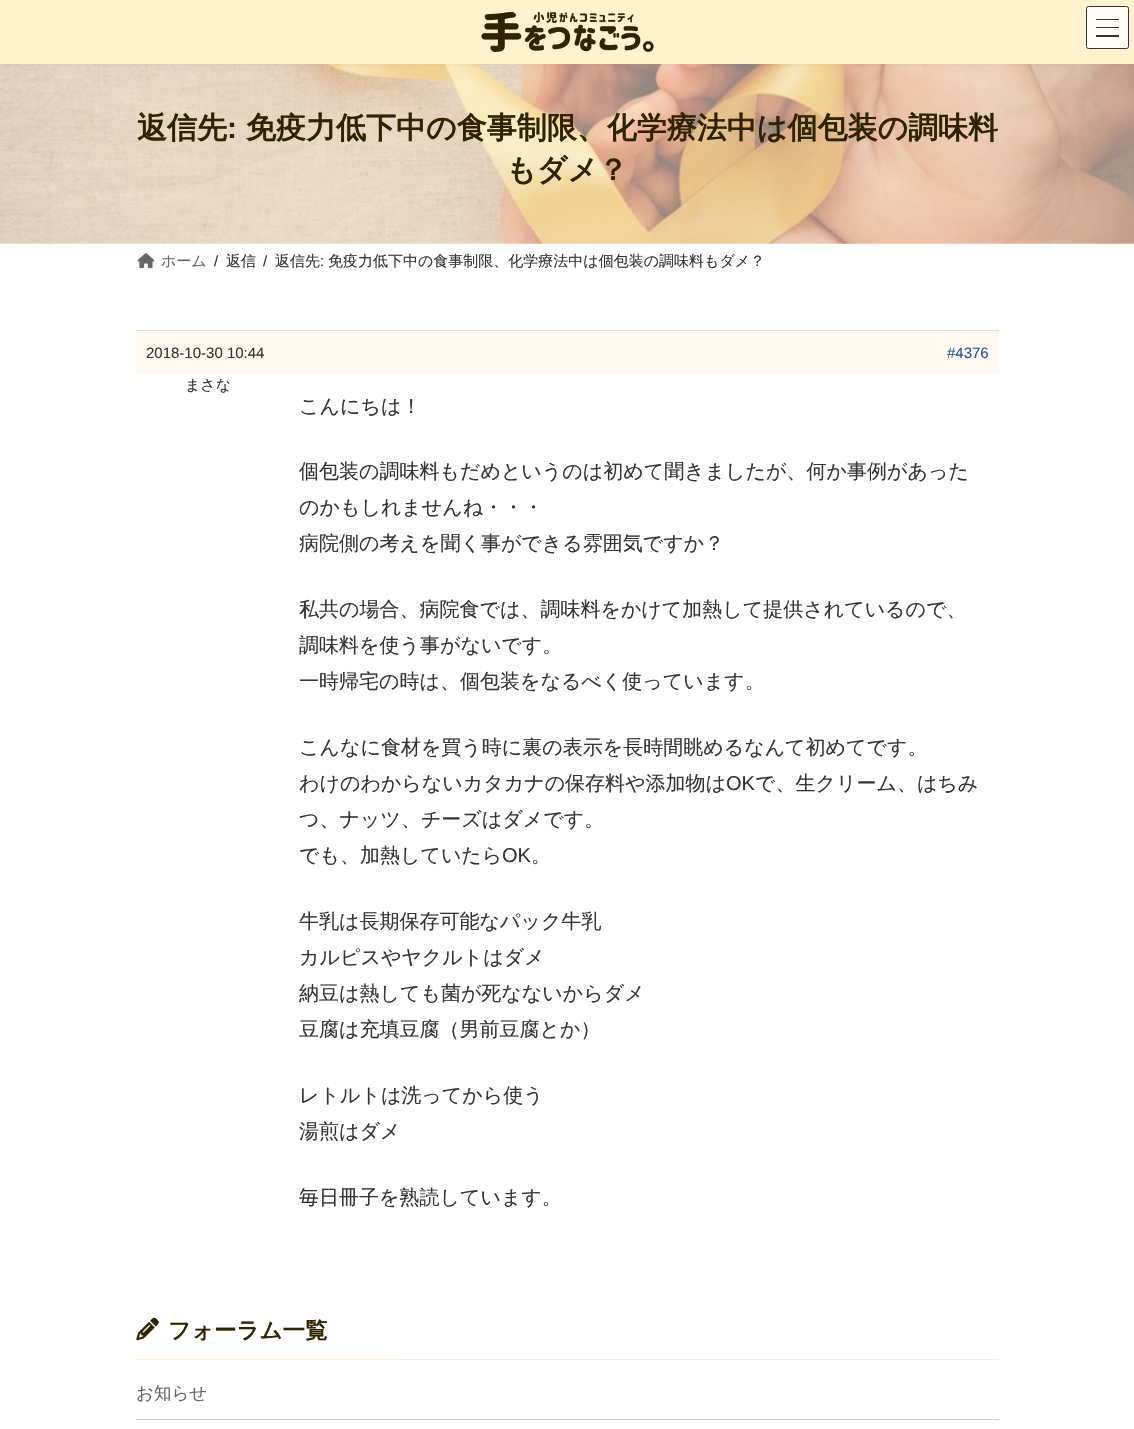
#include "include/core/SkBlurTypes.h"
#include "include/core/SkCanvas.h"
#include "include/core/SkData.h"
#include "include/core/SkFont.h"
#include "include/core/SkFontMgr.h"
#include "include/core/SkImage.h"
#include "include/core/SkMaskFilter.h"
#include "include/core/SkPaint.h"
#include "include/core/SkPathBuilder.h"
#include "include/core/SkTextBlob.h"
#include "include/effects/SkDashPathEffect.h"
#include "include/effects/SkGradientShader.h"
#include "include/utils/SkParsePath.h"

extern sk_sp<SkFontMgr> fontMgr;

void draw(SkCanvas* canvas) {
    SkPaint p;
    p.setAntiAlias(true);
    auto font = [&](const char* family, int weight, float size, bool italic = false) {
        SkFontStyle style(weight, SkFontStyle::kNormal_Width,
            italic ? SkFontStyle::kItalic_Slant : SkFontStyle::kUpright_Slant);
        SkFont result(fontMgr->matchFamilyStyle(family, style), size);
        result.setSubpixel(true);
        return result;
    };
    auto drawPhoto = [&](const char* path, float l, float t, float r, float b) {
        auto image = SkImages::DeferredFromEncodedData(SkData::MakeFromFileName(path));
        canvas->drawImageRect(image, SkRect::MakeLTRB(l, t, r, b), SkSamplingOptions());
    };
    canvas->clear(0xFFFFFFFF);
    drawPhoto("media/2.png", 0, 64, 1134, 244);
    p.setColor(0x0D000000);
    p.setMaskFilter(SkMaskFilter::MakeBlur(kNormal_SkBlurStyle, 2));
    canvas->drawRect(SkRect::MakeLTRB(0, 1, 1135, 65), p);
    p.setMaskFilter(nullptr);
    p.setColor(0xFFFFF2CC);
    canvas->drawRect(SkRect::MakeLTRB(0, 0, 1134, 64), p);
    drawPhoto("media/1.png", 481, 11, 654, 52);
    p.setColor(0xFFFFFCF5);
    canvas->drawRoundRect(SkRect::MakeLTRB(1086, 6, 1129, 49), 2.5f, 2.5f, p);
    {
        const struct { float l, t, r, b; SkColor color; } items[] = {
            {1096, 19, 1119, 20, 0xFF333231},
            {1096, 27, 1119, 28, 0xFF333231},
            {1096, 35, 1119, 37, 0xFF333231},
        };
        for (auto [l, t, r, b, color] : items) {
            p.setColor(color);
            canvas->drawRect(SkRect::MakeLTRB(l, t, r, b), p);
        }
    }
    p.setStyle(SkPaint::kStroke_Style);
    p.setStrokeWidth(1);
    p.setColor(0xFF333333);
    canvas->drawRoundRect(SkRect::MakeLTRB(1086.5f, 6.5f, 1128.5f, 48.5f), 2, 2, p);
    auto font1 = font("WenQuanYi Zen Hei", 700, 30);
    p.setStyle(SkPaint::kFill_Style);
    p.setColor(0xFF302400);
    canvas->drawString("返信先", 137, 138, font1, p);
    auto font2 = font("Liberation Sans", 700, 30);
    canvas->drawString(":", 227, 138, font2, p);
    canvas->drawString("免疫力低下中の食事制限、化学療法中は個包装の調味料", 246, 138, font1, p);
    canvas->drawString("もダメ？", 506, 180, font1, p);
    drawPhoto("media/3.png", 137, 253, 155, 269);
    auto font3 = font("WenQuanYi Zen Hei", 500, 15);
    p.setColor(0xFF666666);
    canvas->drawString("ホーム", 161, 266, font3, p);
    auto font4 = font("Liberation Sans", 400, 15);
    p.setColor(0xFF333333);
    canvas->drawString("/", 214, 266, font4, p);
    canvas->drawString("返信", 226, 266, font3, p);
    canvas->drawString("/", 263, 266, font4, p);
    canvas->drawString("返信先", 275, 266, font3, p);
    canvas->drawString(":", 320, 266, font4, p);
    canvas->drawString("免疫力低下中の食事制限、化学療法中は個包装の調味料もダメ？", 328, 266, font3, p);
    p.setColor(0xFFFFF9EF);
    canvas->drawRect(SkRect::MakeLTRB(136, 331, 999, 374), p);
    p.setColor(0xFFDDDDDD);
    canvas->drawRect(SkRect::MakeLTRB(136, 330, 999, 331), p);
    p.setColor(0xFF333333);
    canvas->drawString("2018-10-30 10:44", 146, 358, font4, p);
    p.setColor(0xFF28509F);
    canvas->drawString("#4376", 947, 358, font4, p);
    p.setColor(0xFF333333);
    canvas->drawString("まさな", 185, 390, font3, p);
    auto font5 = font("WenQuanYi Zen Hei", 500, 20);
    {
        const struct { const char* s; float x, y; } items[] = {
            {"こんにちは！", 299, 413},
            {"個包装の調味料もだめというのは初めて聞きましたが、何か事例があった", 299, 478},
            {"のかもしれませんね・・・", 299, 514},
            {"病院側の考えを聞く事ができる雰囲気ですか？", 299, 550},
            {"私共の場合、病院食では、調味料をかけて加熱して提供されているので、", 299, 616},
            {"調味料を使う事がないです。", 299, 652},
            {"一時帰宅の時は、個包装をなるべく使っています。", 299, 688},
            {"こんなに食材を買う時に裏の表示を長時間眺めるなんて初めてです。", 299, 754},
            {"わけのわからないカタカナの保存料や添加物は", 299, 790},
        };
        for (auto [s, x, y] : items) {
            canvas->drawString(s, x, y, font5, p);
        }
    }
    auto font6 = font("Liberation Sans", 400, 20);
    canvas->drawString("OK", 726, 790, font6, p);
    {
        const struct { const char* s; float x, y; } items[] = {
            {"で、生クリーム、はちみ", 755, 790},
            {"つ、ナッツ、チーズはダメです。", 299, 826},
            {"でも、加熱していたら", 299, 862},
        };
        for (auto [s, x, y] : items) {
            canvas->drawString(s, x, y, font5, p);
        }
    }
    canvas->drawString("OK", 502, 862, font6, p);
    {
        const struct { const char* s; float x, y; } items[] = {
            {"。", 531, 862},
            {"牛乳は長期保存可能なパック牛乳", 299, 928},
            {"カルピスやヤクルトはダメ", 299, 964},
            {"納豆は熱しても菌が死なないからダメ", 299, 1000},
            {"豆腐は充填豆腐（男前豆腐とか）", 299, 1036},
            {"レトルトは洗ってから使う", 299, 1102},
            {"湯煎はダメ", 299, 1138},
            {"毎日冊子を熟読しています。", 299, 1204},
        };
        for (auto [s, x, y] : items) {
            canvas->drawString(s, x, y, font5, p);
        }
    }
    p.setColor(0xFFF0F0F0);
    canvas->drawRect(SkRect::MakeLTRB(395, 1359, 999, 1360), p);
    drawPhoto("media/4.png", 136, 1317, 159, 1341);
    auto font7 = font("WenQuanYi Zen Hei", 700, 22.5f);
    p.setColor(0xFF302400);
    canvas->drawString("フォーラム一覧", 168, 1338, font7, p);
    p.setColor(0xFFFFF2CC);
    canvas->drawRect(SkRect::MakeLTRB(136, 1359, 395, 1360), p);
    p.setColor(0xFFCCCCCC);
    canvas->drawRect(SkRect::MakeLTRB(136, 1419, 999, 1420), p);
    auto font8 = font("WenQuanYi Zen Hei", 500, 17.5f);
    p.setColor(0xFF666666);
    canvas->drawString("お知らせ", 136, 1399, font8, p);
}
